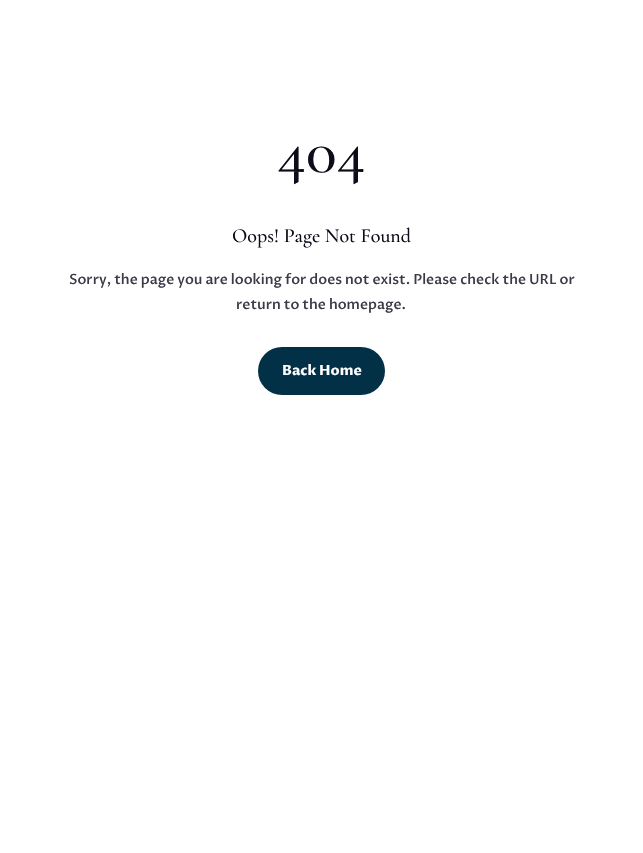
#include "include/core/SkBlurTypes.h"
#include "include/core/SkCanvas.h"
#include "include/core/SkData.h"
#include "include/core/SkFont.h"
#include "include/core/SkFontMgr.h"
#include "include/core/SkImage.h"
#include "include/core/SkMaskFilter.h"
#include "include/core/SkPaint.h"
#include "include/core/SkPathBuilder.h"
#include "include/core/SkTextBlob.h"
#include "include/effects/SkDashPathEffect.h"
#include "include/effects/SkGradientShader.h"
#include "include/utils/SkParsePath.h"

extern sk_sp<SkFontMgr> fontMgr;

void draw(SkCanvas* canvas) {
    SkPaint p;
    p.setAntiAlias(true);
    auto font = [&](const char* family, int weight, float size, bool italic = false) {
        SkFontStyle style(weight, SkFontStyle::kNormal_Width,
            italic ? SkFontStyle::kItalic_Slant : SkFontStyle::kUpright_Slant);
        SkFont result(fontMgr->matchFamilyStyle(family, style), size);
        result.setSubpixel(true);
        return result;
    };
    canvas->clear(0xFFFFFFFF);
    auto font1 = font("Cormorant Garamond", 500, 64);
    p.setColor(0xFF0E0C19);
    canvas->drawString("404", 277, 172, font1, p);
    auto font2 = font("Cormorant Garamond", 500, 20);
    canvas->drawString("Oops! Page Not Found", 232, 242, font2, p);
    auto font3 = font("Proza Libre", 500, 14);
    p.setColor(0xFF3C3A47);
    canvas->drawString("Sorry, the page you are looking for does not exist. Please check the URL or", 69, 284, font3, p);
    canvas->drawString("return to the homepage.", 236, 309, font3, p);
    p.setColor(0xFF023047);
    canvas->drawRoundRect(SkRect::MakeLTRB(258, 347, 385, 395), 24, 24, p);
    auto font4 = font("Proza Libre", 700, 14);
    p.setColor(0xFFFFFFFF);
    canvas->drawString("Back Home", 282, 375, font4, p);
}
